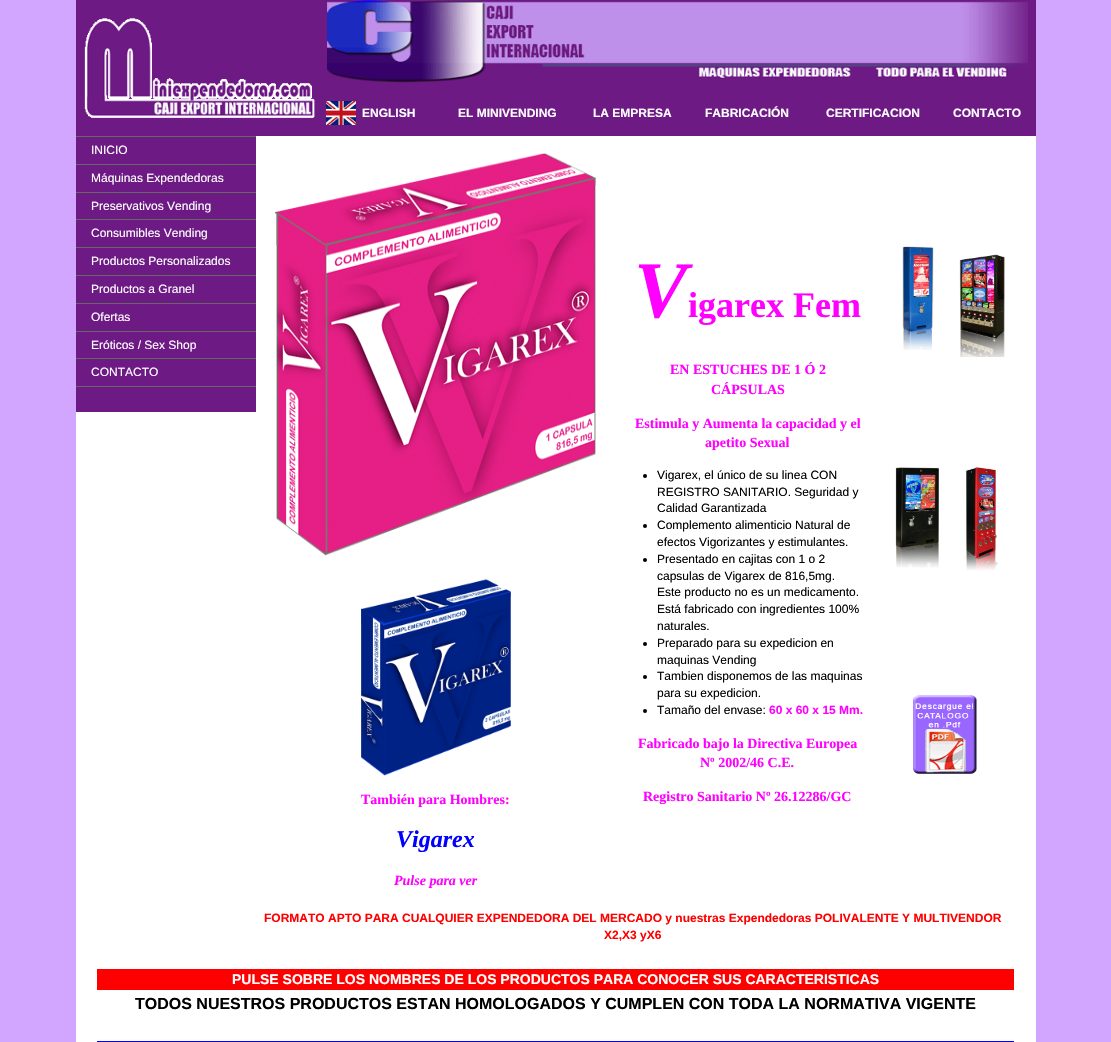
#include "include/core/SkBlurTypes.h"
#include "include/core/SkCanvas.h"
#include "include/core/SkData.h"
#include "include/core/SkFont.h"
#include "include/core/SkFontMgr.h"
#include "include/core/SkImage.h"
#include "include/core/SkMaskFilter.h"
#include "include/core/SkPaint.h"
#include "include/core/SkPathBuilder.h"
#include "include/core/SkTextBlob.h"
#include "include/effects/SkDashPathEffect.h"
#include "include/effects/SkGradientShader.h"
#include "include/utils/SkParsePath.h"

extern sk_sp<SkFontMgr> fontMgr;

void draw(SkCanvas* canvas) {
    SkPaint p;
    p.setAntiAlias(true);
    auto font = [&](const char* family, int weight, float size, bool italic = false) {
        SkFontStyle style(weight, SkFontStyle::kNormal_Width,
            italic ? SkFontStyle::kItalic_Slant : SkFontStyle::kUpright_Slant);
        SkFont result(fontMgr->matchFamilyStyle(family, style), size);
        result.setSubpixel(true);
        return result;
    };
    auto drawPhoto = [&](const char* path, float l, float t, float r, float b) {
        auto image = SkImages::DeferredFromEncodedData(SkData::MakeFromFileName(path));
        canvas->drawImageRect(image, SkRect::MakeLTRB(l, t, r, b), SkSamplingOptions());
    };
    canvas->clear(0xFFD2A6FF);
    p.setColor(0xFFFFFFFF);
    canvas->drawRect(SkRect::MakeLTRB(76, 136, 1036, 1042), p);
    p.setColor(0xFF6D1A85);
    canvas->drawRect(SkRect::MakeLTRB(76, 0, 320, 136), p);
    drawPhoto("media/1.png", 84, 18, 315, 118);
    canvas->drawRect(SkRect::MakeLTRB(320, 0, 1036, 90), p);
    drawPhoto("media/2.png", 327, 0, 1028, 83);
    canvas->drawRect(SkRect::MakeLTRB(320, 90, 1036, 136), p);
    drawPhoto("media/3.png", 326, 101, 356, 125);
    auto font1 = font("Liberation Sans", 700, 12);
    p.setColor(0xFFFFFFFF);
    {
        const struct { const char* s; float x, y; } items[] = {
            {"ENGLISH", 362, 117},
            {"EL MINIVENDING", 458, 117},
            {"LA EMPRESA", 593, 117},
            {"FABRICACIÓN", 705, 117},
            {"CERTIFICACION", 826, 117},
            {"CONTACTO", 953, 117},
        };
        for (auto [s, x, y] : items) {
            canvas->drawString(s, x, y, font1, p);
        }
    }
    {
        const struct { float l, t, r, b; SkColor color; } items[] = {
            {76, 137, 256, 412, 0xFF6D1A85},
            {76, 136, 256, 137, 0xFF666666},
            {76, 164, 256, 165, 0xFF666666},
        };
        for (auto [l, t, r, b, color] : items) {
            p.setColor(color);
            canvas->drawRect(SkRect::MakeLTRB(l, t, r, b), p);
        }
    }
    auto font2 = font("Liberation Sans", 400, 12);
    p.setColor(0xFFFFFFFF);
    canvas->drawString("INICIO", 91, 154, font2, p);
    p.setColor(0xFF666666);
    canvas->drawRect(SkRect::MakeLTRB(76, 192, 256, 193), p);
    p.setColor(0xFFFFFFFF);
    canvas->drawString("Máquinas Expendedoras", 91, 182, font2, p);
    p.setColor(0xFF666666);
    canvas->drawRect(SkRect::MakeLTRB(76, 219, 256, 220), p);
    p.setColor(0xFFFFFFFF);
    canvas->drawString("Preservativos Vending", 91, 210, font2, p);
    p.setColor(0xFF666666);
    canvas->drawRect(SkRect::MakeLTRB(76, 247, 256, 248), p);
    p.setColor(0xFFFFFFFF);
    canvas->drawString("Consumibles Vending", 91, 237, font2, p);
    p.setColor(0xFF666666);
    canvas->drawRect(SkRect::MakeLTRB(76, 275, 256, 276), p);
    p.setColor(0xFFFFFFFF);
    canvas->drawString("Productos Personalizados", 91, 265, font2, p);
    p.setColor(0xFF666666);
    canvas->drawRect(SkRect::MakeLTRB(76, 303, 256, 304), p);
    p.setColor(0xFFFFFFFF);
    canvas->drawString("Productos a Granel", 91, 293, font2, p);
    p.setColor(0xFF666666);
    canvas->drawRect(SkRect::MakeLTRB(76, 331, 256, 332), p);
    p.setColor(0xFFFFFFFF);
    canvas->drawString("Ofertas", 91, 321, font2, p);
    p.setColor(0xFF666666);
    canvas->drawRect(SkRect::MakeLTRB(76, 358, 256, 359), p);
    p.setColor(0xFFFFFFFF);
    canvas->drawString("Eróticos / Sex Shop", 91, 349, font2, p);
    canvas->drawString("CONTACTO", 91, 376, font2, p);
    p.setColor(0xFF666666);
    canvas->drawRect(SkRect::MakeLTRB(76, 386, 256, 387), p);
    drawPhoto("media/4.png", 275, 153, 596, 556);
    auto font3 = font("Liberation Serif", 700, 80, true);
    p.setColor(0xFFFF00FF);
    canvas->drawString("V", 634, 317, font3, p);
    auto font4 = font("Liberation Serif", 700, 36);
    canvas->drawString("igarex Fem", 688, 317, font4, p);
    auto font5 = font("Liberation Serif", 700, 14);
    {
        const struct { const char* s; float x, y; } items[] = {
            {"EN ESTUCHES DE 1 Ó 2", 670, 374},
            {"CÁPSULAS", 711, 394},
            {"Estimula y Aumenta la capacidad y el", 635, 428},
            {"apetito Sexual", 705, 447},
        };
        for (auto [s, x, y] : items) {
            canvas->drawString(s, x, y, font5, p);
        }
    }
    p.setColor(0xFF000000);
    canvas->drawCircle(645, 476, 2, p);
    {
        const struct { const char* s; float x, y; } items[] = {
            {"Vigarex, el único de su linea CON", 657, 479},
            {"REGISTRO SANITARIO. Seguridad y", 657, 496},
            {"Calidad Garantizada", 657, 512},
        };
        for (auto [s, x, y] : items) {
            canvas->drawString(s, x, y, font2, p);
        }
    }
    canvas->drawCircle(645, 526, 2, p);
    canvas->drawString("Complemento alimenticio Natural de", 657, 529, font2, p);
    canvas->drawString("efectos Vigorizantes y estimulantes.", 657, 546, font2, p);
    canvas->drawCircle(645, 560, 2, p);
    {
        const struct { const char* s; float x, y; } items[] = {
            {"Presentado en cajitas con 1 o 2", 657, 563},
            {"capsulas de Vigarex de 816,5mg.", 657, 580},
            {"Este producto no es un medicamento.", 657, 596},
            {"Está fabricado con ingredientes 100%", 657, 613},
            {"naturales.", 657, 630},
        };
        for (auto [s, x, y] : items) {
            canvas->drawString(s, x, y, font2, p);
        }
    }
    canvas->drawCircle(645, 644, 2, p);
    canvas->drawString("Preparado para su expedicion en", 657, 647, font2, p);
    canvas->drawString("maquinas Vending", 657, 664, font2, p);
    canvas->drawCircle(645, 677, 2, p);
    canvas->drawString("Tambien disponemos de las maquinas", 657, 680, font2, p);
    canvas->drawString("para su expedicion.", 657, 697, font2, p);
    canvas->drawCircle(645, 711, 2, p);
    canvas->drawString("Tamaño del envase:", 657, 714, font2, p);
    p.setColor(0xFFFF00FF);
    canvas->drawString("60 x 60 x 15 Mm.", 769, 714, font1, p);
    {
        const struct { const char* s; float x, y; } items[] = {
            {"Fabricado bajo la Directiva Europea", 638, 748},
            {"Nº 2002/46 C.E.", 700, 767},
            {"Registro Sanitario Nº 26.12286/GC", 643, 801},
        };
        for (auto [s, x, y] : items) {
            canvas->drawString(s, x, y, font5, p);
        }
    }
    drawPhoto("media/5.png", 902, 246, 934, 350);
    drawPhoto("media/6.png", 959, 254, 1005, 357);
    drawPhoto("media/7.png", 895, 467, 939, 568);
    drawPhoto("media/8.png", 966, 467, 998, 571);
    drawPhoto("media/9.png", 913, 695, 977, 774);
    drawPhoto("media/10.png", 361, 579, 511, 776);
    canvas->drawString("También para Hombres:", 361, 804, font5, p);
    auto font6 = font("Liberation Serif", 700, 24, true);
    p.setColor(0xFF0000FF);
    canvas->drawString("Vigarex", 396, 847, font6, p);
    auto font7 = font("Liberation Serif", 700, 14, true);
    p.setColor(0xFFFF00FF);
    canvas->drawString("Pulse para ver", 394, 885, font7, p);
    p.setColor(0xFFFF0000);
    canvas->drawString("FORMATO APTO PARA CUALQUIER EXPENDEDORA DEL MERCADO y nuestras Expendedoras POLIVALENTE Y MULTIVENDOR", 264, 922, font1, p);
    canvas->drawString("X2,X3 yX6", 604, 939, font1, p);
    canvas->drawRect(SkRect::MakeLTRB(97, 969, 1014, 990), p);
    auto font8 = font("Liberation Sans", 700, 14);
    p.setColor(0xFFFFFFFF);
    canvas->drawString("PULSE SOBRE LOS NOMBRES DE LOS PRODUCTOS PARA CONOCER SUS CARACTERISTICAS", 232, 984, font8, p);
    auto font9 = font("Liberation Sans", 700, 16);
    p.setColor(0xFF000000);
    canvas->drawString("TODOS NUESTROS PRODUCTOS ESTAN HOMOLOGADOS Y CUMPLEN CON TODA LA NORMATIVA VIGENTE", 135, 1009, font9, p);
    p.setColor(0xFF0000FF);
    canvas->drawRect(SkRect::MakeLTRB(97, 1041, 1014, 1042), p);
}
